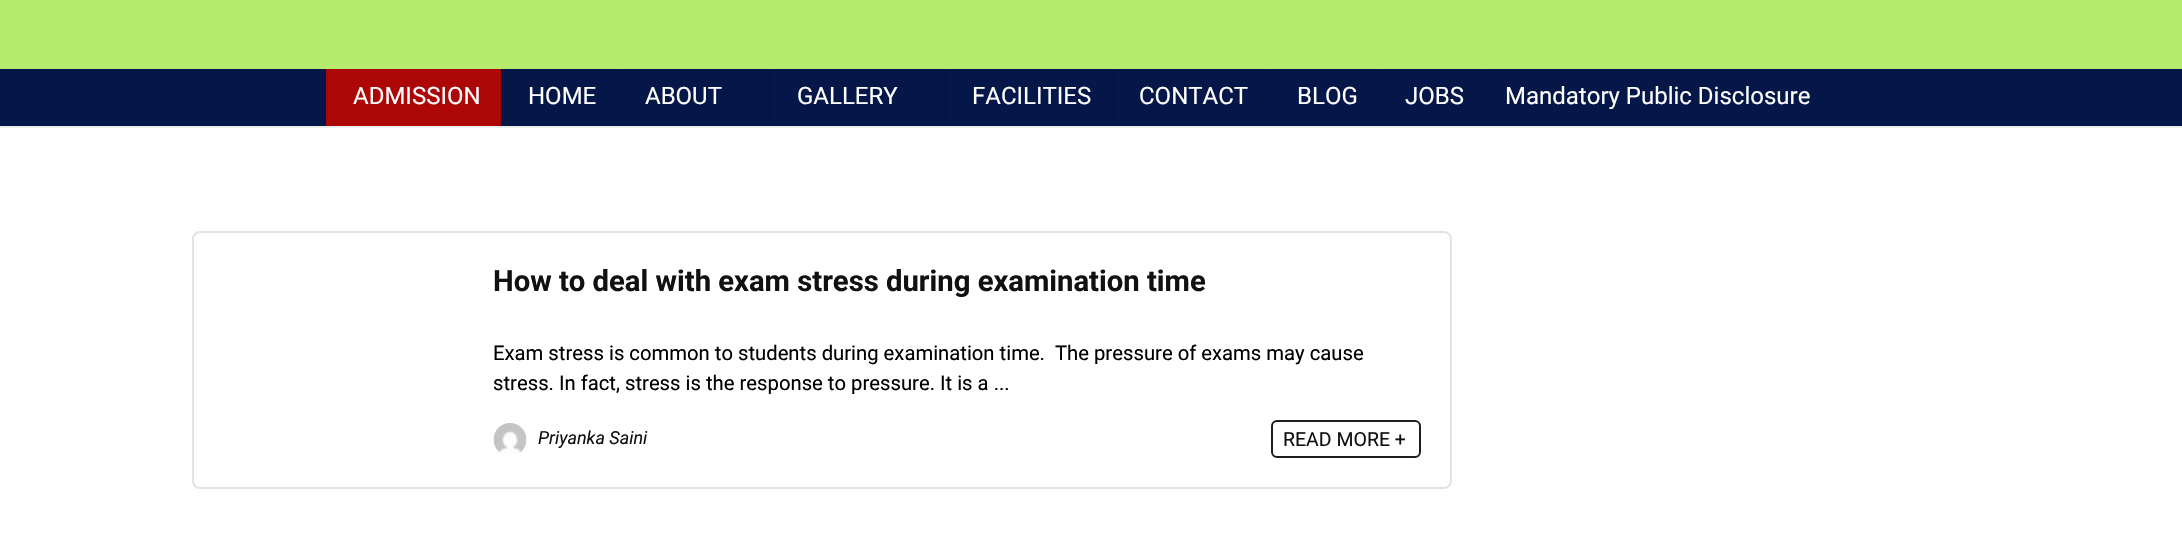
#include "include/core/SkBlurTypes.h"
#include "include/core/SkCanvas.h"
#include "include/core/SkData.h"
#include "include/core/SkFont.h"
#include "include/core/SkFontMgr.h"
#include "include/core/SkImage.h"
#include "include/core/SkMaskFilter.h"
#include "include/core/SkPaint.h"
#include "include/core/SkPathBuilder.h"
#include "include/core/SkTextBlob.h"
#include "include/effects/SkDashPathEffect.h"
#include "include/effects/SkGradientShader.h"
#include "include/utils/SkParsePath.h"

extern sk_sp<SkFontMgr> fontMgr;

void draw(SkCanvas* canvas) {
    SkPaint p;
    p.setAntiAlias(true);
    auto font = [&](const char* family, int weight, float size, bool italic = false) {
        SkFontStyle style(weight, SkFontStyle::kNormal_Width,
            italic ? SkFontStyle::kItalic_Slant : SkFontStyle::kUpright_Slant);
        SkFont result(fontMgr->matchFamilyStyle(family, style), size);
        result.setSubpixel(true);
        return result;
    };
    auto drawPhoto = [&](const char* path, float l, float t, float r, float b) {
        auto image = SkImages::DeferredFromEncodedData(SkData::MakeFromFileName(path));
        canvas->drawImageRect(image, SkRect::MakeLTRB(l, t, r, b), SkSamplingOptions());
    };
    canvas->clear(0xFFFFFFFF);
    {
        const struct { float l, t, r, b; SkColor color; } items[] = {
            {0, 0, 2182, 69, 0xFFB5EB6D},
            {0, 69, 2182, 126, 0xFF051749},
            {501, 69, 502, 126, 0xFF051543},
            {0, 126, 2182, 128, 0xFFEEEEEE},
            {326, 69, 500, 126, 0xFFAD0606},
            {500, 69, 501, 126, 0xFF9F0606},
        };
        for (auto [l, t, r, b, color] : items) {
            p.setColor(color);
            canvas->drawRect(SkRect::MakeLTRB(l, t, r, b), p);
        }
    }
    auto font1 = font("Roboto", 400, 24);
    p.setColor(0xFFFEFEFE);
    canvas->drawString("ADMISSION", 353, 104, font1, p);
    p.setColor(0xFF051543);
    canvas->drawRect(SkRect::MakeLTRB(617, 69, 619, 126), p);
    p.setColor(0xFFFEFEFE);
    canvas->drawString("HOME", 528, 104, font1, p);
    p.setColor(0xFF051543);
    canvas->drawRect(SkRect::MakeLTRB(768, 69, 770, 126), p);
    p.setColor(0xFFFEFEFE);
    canvas->drawString("ABOUT", 645, 104, font1, p);
    p.setColor(0xFF051543);
    canvas->drawRect(SkRect::MakeLTRB(944, 69, 946, 126), p);
    p.setColor(0xFFFEFEFE);
    canvas->drawString("GALLERY", 797, 104, font1, p);
    p.setColor(0xFF051543);
    canvas->drawRect(SkRect::MakeLTRB(1112, 69, 1114, 126), p);
    p.setColor(0xFFFEFEFE);
    canvas->drawString("FACILITIES", 972, 104, font1, p);
    p.setColor(0xFF051543);
    canvas->drawRect(SkRect::MakeLTRB(1268, 69, 1270, 126), p);
    p.setColor(0xFFFEFEFE);
    canvas->drawString("CONTACT", 1139, 104, font1, p);
    p.setColor(0xFF051543);
    canvas->drawRect(SkRect::MakeLTRB(1377, 69, 1379, 126), p);
    p.setColor(0xFFFEFEFE);
    canvas->drawString("BLOG", 1297, 104, font1, p);
    p.setColor(0xFF051543);
    canvas->drawRect(SkRect::MakeLTRB(1484, 69, 1486, 126), p);
    p.setColor(0xFFFEFEFE);
    canvas->drawString("JOBS", 1405, 104, font1, p);
    canvas->drawString("Mandatory Public Disclosure", 1505, 104, font1, p);
    p.setStyle(SkPaint::kStroke_Style);
    p.setStrokeWidth(2);
    p.setColor(0xFFE3E3E3);
    canvas->drawRoundRect(SkRect::MakeLTRB(193, 232, 1451, 488), 7, 7, p);
    auto font2 = font("Roboto", 700, 29.25f);
    p.setStyle(SkPaint::kFill_Style);
    p.setColor(0xFF111111);
    canvas->drawString("How to deal with exam stress during examination time", 493, 291, font2, p);
    auto font3 = font("Roboto", 400, 20.25f);
    p.setColor(0xFF000000);
    canvas->drawString("Exam stress is common to students during examination time.  The pressure of exams may cause", 493, 360, font3, p);
    canvas->drawString("stress. In fact, stress is the response to pressure. It is a ...", 493, 390, font3, p);
    drawPhoto("media/1.png", 493, 423, 527, 456);
    auto font4 = font("Roboto", 400, 18, true);
    p.setColor(0xFF111111);
    canvas->drawString("Priyanka Saini", 538, 444, font4, p);
    p.setStyle(SkPaint::kStroke_Style);
    p.setColor(0xFF1E1E1E);
    canvas->drawRoundRect(SkRect::MakeLTRB(1272, 421, 1420, 457), 5, 5, p);
    auto font5 = font("Roboto", 400, 19.5f);
    p.setStyle(SkPaint::kFill_Style);
    p.setColor(0xFF111111);
    canvas->drawString("READ MORE +", 1283, 446, font5, p);
}
